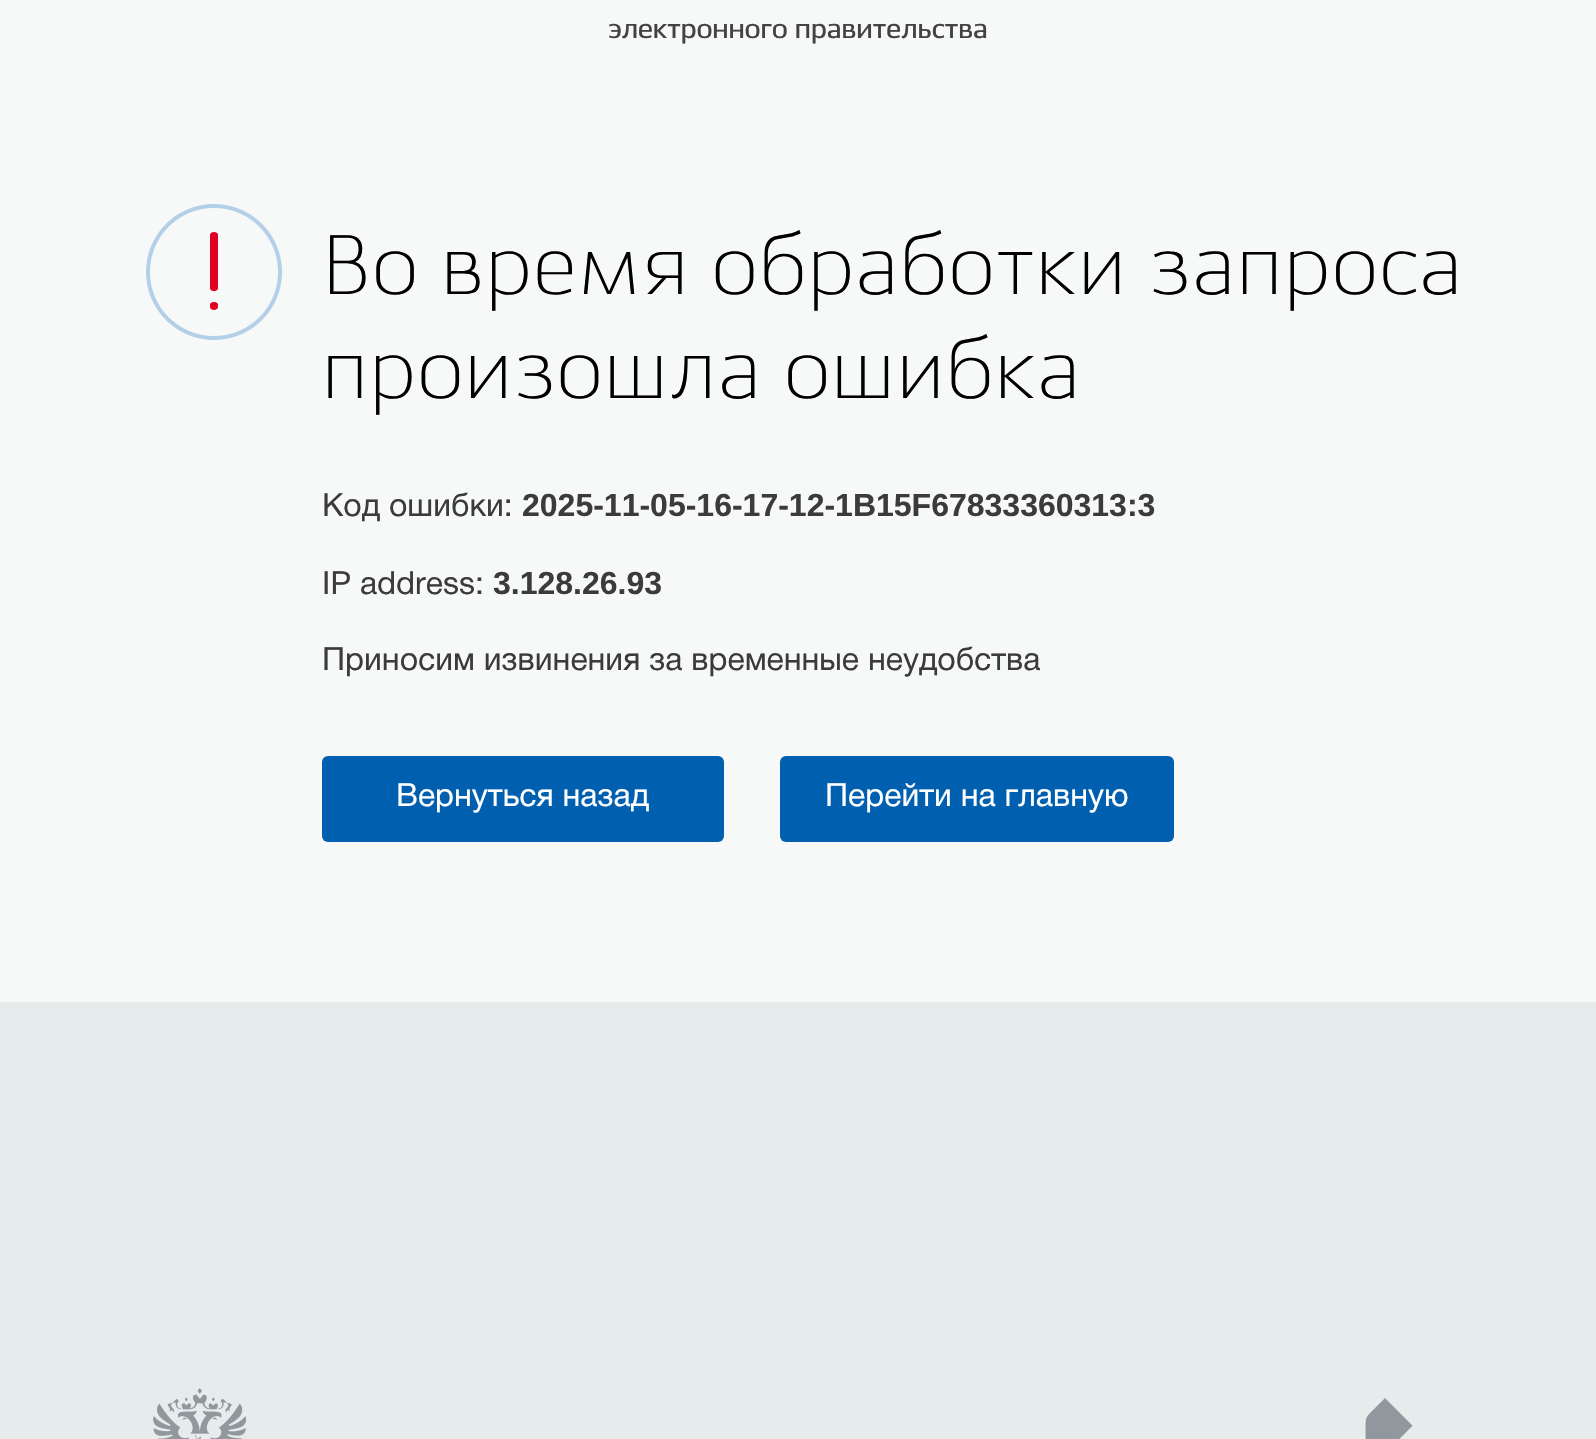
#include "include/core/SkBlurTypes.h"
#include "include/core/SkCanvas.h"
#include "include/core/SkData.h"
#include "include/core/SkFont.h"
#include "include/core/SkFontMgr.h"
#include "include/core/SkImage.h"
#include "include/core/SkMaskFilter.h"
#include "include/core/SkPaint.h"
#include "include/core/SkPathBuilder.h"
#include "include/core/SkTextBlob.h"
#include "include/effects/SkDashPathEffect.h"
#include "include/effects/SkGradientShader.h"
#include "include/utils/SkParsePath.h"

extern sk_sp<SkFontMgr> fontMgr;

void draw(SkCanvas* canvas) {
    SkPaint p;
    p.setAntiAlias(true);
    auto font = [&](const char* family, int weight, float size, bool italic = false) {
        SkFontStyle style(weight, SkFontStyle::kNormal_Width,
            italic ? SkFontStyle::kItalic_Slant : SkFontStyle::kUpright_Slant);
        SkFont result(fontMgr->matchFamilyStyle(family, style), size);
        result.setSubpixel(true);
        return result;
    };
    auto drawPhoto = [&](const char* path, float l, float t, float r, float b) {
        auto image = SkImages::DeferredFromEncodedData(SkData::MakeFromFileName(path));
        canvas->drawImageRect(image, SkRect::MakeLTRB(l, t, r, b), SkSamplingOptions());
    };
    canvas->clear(0xFFF7F9F9);
    auto font1 = font("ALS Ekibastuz", 700, 28);
    p.setColor(0xFF434343);
    canvas->drawString("электронного правительства", 608, 38, font1, p);
    drawPhoto("media/1.png", 146, 204, 282, 340);
    auto font2 = font("ALS Ekibastuz", 300, 84);
    p.setColor(0xFF000000);
    canvas->drawString("Во время обработки запроса", 322, 294, font2, p);
    canvas->drawString("произошла ошибка", 322, 398, font2, p);
    auto font3 = font("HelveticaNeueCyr", 400, 32);
    p.setColor(0xFF3B3B3B);
    canvas->drawString("Код ошибки:", 322, 516, font3, p);
    auto font4 = font("Liberation Sans", 700, 32);
    canvas->drawString("2025-11-05-16-17-12-1B15F67833360313:3", 522, 516, font4, p);
    canvas->drawString("IP address:", 322, 594, font3, p);
    canvas->drawString("3.128.26.93", 493, 594, font4, p);
    canvas->drawString("Приносим извинения за временные неудобства", 322, 670, font3, p);
    p.setColor(0xFF005FAF);
    canvas->drawRoundRect(SkRect::MakeLTRB(322, 756, 724, 842), 6, 6, p);
    p.setColor(0xFFFFFFFF);
    canvas->drawString("Вернуться назад", 396, 806, font3, p);
    p.setColor(0xFF005FAF);
    canvas->drawRoundRect(SkRect::MakeLTRB(780, 756, 1174, 842), 6, 6, p);
    p.setColor(0xFFFFFFFF);
    canvas->drawString("Перейти на главную", 825, 806, font3, p);
    p.setColor(0xFFE6ECEC);
    canvas->drawRect(SkRect::MakeLTRB(0, 1002, 1596, 1439), p);
    drawPhoto("media/2.png", 153, 1388, 247, 1439);
    drawPhoto("media/3.png", 1365, 1398, 1413, 1439);
}
